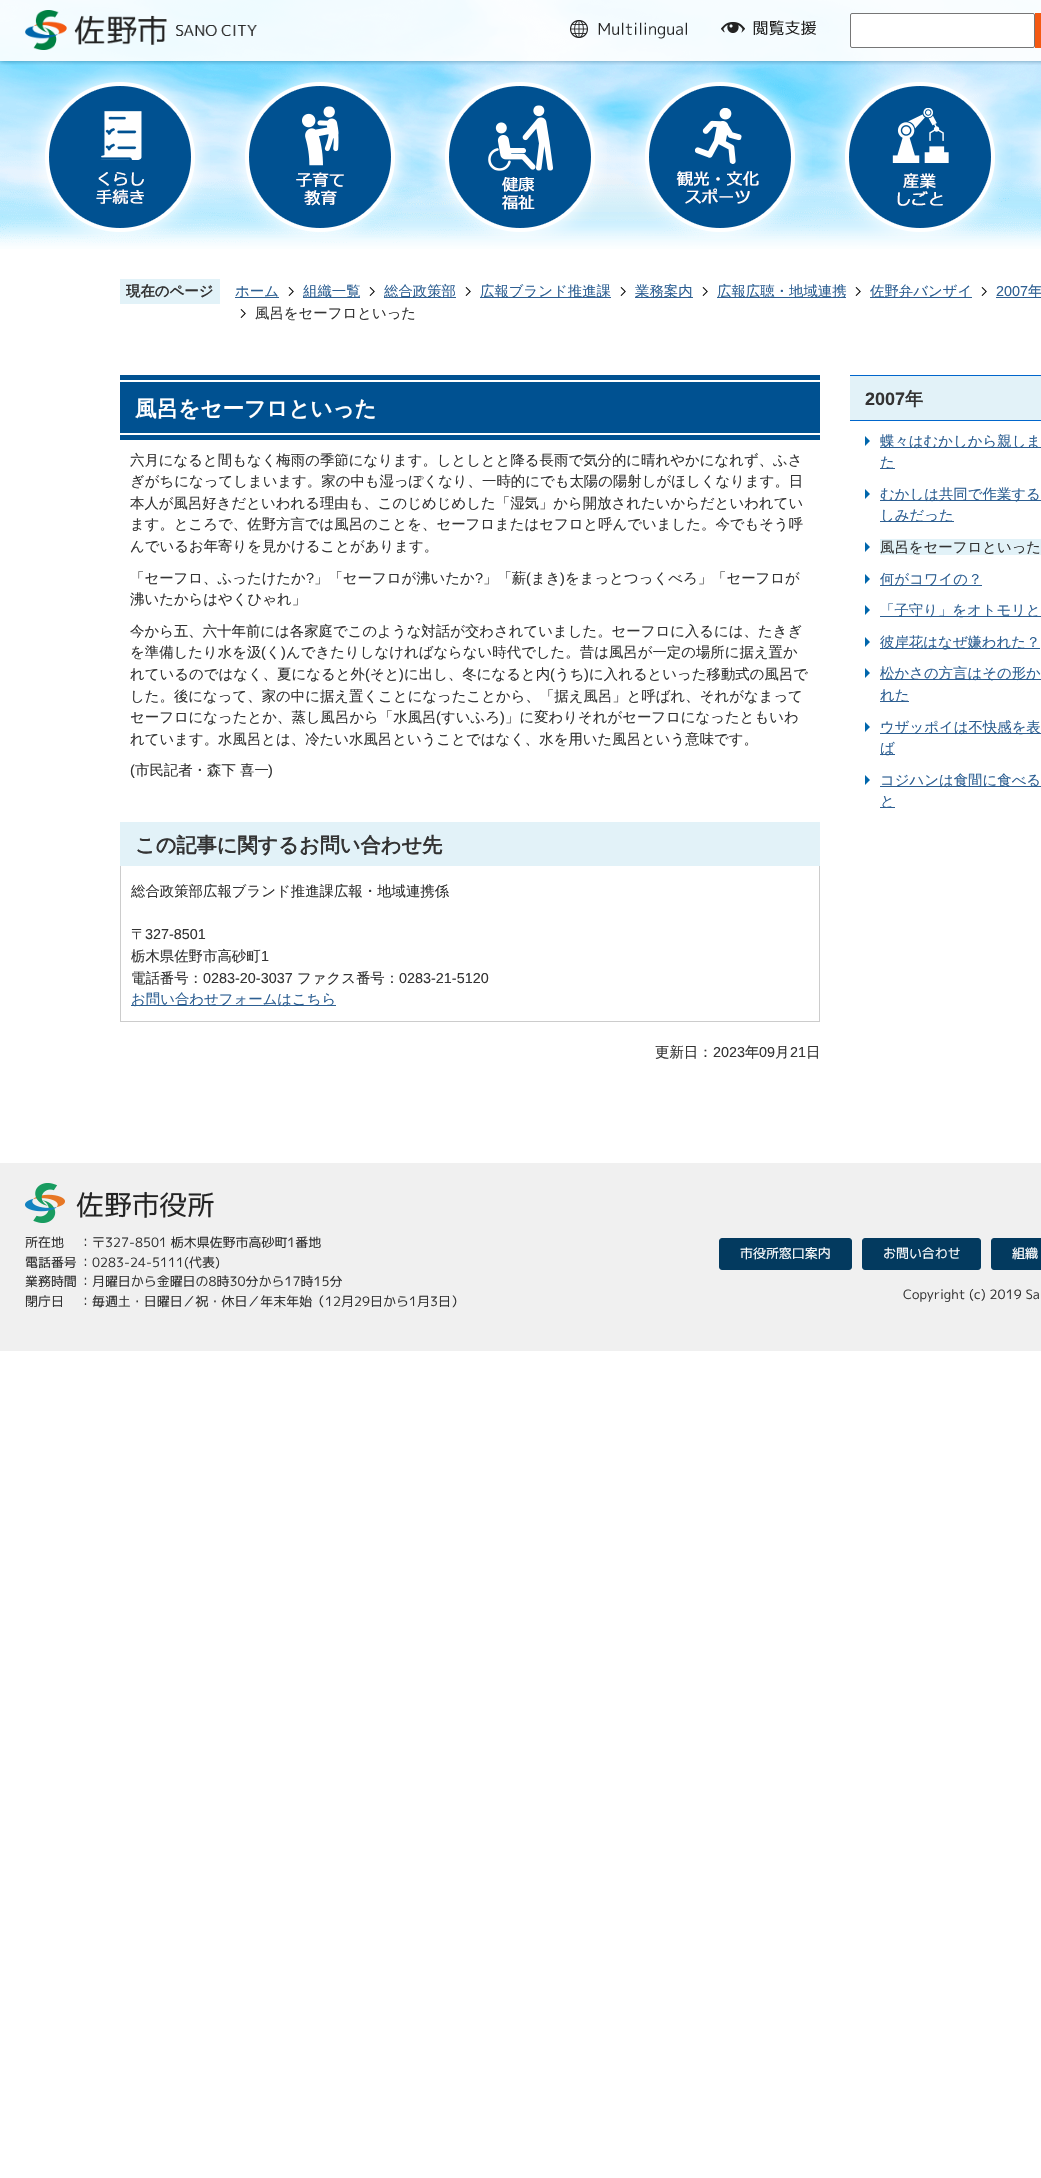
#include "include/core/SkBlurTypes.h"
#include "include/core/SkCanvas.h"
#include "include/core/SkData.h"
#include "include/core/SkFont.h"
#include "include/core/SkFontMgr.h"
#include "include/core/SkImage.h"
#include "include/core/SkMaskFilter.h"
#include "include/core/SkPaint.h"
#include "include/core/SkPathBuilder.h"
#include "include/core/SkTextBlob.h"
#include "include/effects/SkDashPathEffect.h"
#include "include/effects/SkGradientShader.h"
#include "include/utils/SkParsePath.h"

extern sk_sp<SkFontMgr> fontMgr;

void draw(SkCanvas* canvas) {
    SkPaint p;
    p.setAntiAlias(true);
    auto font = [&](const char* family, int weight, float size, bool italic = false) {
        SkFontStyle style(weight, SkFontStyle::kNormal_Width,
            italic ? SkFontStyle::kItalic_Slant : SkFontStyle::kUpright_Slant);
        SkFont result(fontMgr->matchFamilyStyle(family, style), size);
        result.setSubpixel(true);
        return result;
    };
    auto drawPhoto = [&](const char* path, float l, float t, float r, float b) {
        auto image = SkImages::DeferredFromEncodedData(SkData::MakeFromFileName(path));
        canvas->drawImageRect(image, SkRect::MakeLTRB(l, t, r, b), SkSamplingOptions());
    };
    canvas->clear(0xFFFFFFFF);
    drawPhoto("media/1.png", 0, 0, 1041, 249);
    drawPhoto("media/5.png", 31, 64, 210, 239);
    drawPhoto("media/6.png", 230, 64, 411, 239);
    drawPhoto("media/7.png", 429, 67, 607, 239);
    drawPhoto("media/8.png", 631, 65, 812, 239);
    drawPhoto("media/9.png", 828, 68, 1011, 239);
    canvas->save();
    canvas->clipRect(SkRect::MakeLTRB(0, 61, 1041, 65));
    p.setColor(0x80033A5F);
    p.setMaskFilter(SkMaskFilter::MakeBlur(kNormal_SkBlurStyle, 2.5f));
    canvas->drawRect(SkRect::MakeLTRB(0, 0, 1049, 61), p);
    p.setMaskFilter(nullptr);
    canvas->restore();
    p.setColor(0xE6FFFFFF);
    canvas->drawRect(SkRect::MakeLTRB(0, 0, 1041, 61), p);
    drawPhoto("media/2.png", 25, 10, 257, 50);
    drawPhoto("media/3.png", 570, 20, 687, 39);
    drawPhoto("media/4.png", 721, 20, 816, 36);
    p.setColor(0xFFFFFFFF);
    canvas->drawRoundRect(SkRect::MakeLTRB(850.5f, 13.5f, 1034.5f, 47.5f), 1.5f, 1.5f, p);
    p.setStyle(SkPaint::kStroke_Style);
    p.setStrokeWidth(1);
    p.setColor(0xFF767676);
    canvas->drawRoundRect(SkRect::MakeLTRB(850.5f, 13.5f, 1034.5f, 47.5f), 1.5f, 1.5f, p);
    p.setStyle(SkPaint::kFill_Style);
    p.setColor(0xFFF45912);
    canvas->drawRect(SkRect::MakeLTRB(1035, 13, 1041, 48), p);
    drawPhoto("media/10.png", 1030, 112, 1041, 201);
    p.setColor(0xFFE2F2F8);
    canvas->drawRect(SkRect::MakeLTRB(120, 279, 220, 304), p);
    auto font1 = font("WenQuanYi Zen Hei", 700, 14.4f);
    p.setColor(0xFF333333);
    canvas->drawString("現在のページ", 126, 296, font1, p);
    p.setColor(0xFF2D5F92);
    canvas->drawRect(SkRect::MakeLTRB(235, 297, 279, 298), p);
    auto font2 = font("WenQuanYi Zen Hei", 500, 14.4f);
    canvas->drawString("ホーム", 235, 296, font2, p);
    drawPhoto("media/11.png", 288, 287, 294, 296);
    canvas->drawRect(SkRect::MakeLTRB(303, 297, 360, 298), p);
    canvas->drawString("組織一覧", 303, 296, font2, p);
    drawPhoto("media/11.png", 369, 287, 375, 296);
    canvas->drawRect(SkRect::MakeLTRB(384, 297, 456, 298), p);
    canvas->drawString("総合政策部", 384, 296, font2, p);
    drawPhoto("media/11.png", 465, 287, 471, 296);
    canvas->drawRect(SkRect::MakeLTRB(480, 297, 611, 298), p);
    canvas->drawString("広報ブランド推進課", 480, 296, font2, p);
    drawPhoto("media/11.png", 620, 287, 626, 296);
    canvas->drawRect(SkRect::MakeLTRB(635, 297, 693, 298), p);
    canvas->drawString("業務案内", 635, 296, font2, p);
    drawPhoto("media/11.png", 702, 287, 708, 296);
    canvas->drawRect(SkRect::MakeLTRB(717, 297, 846, 298), p);
    canvas->drawString("広報広聴・地域連携", 717, 296, font2, p);
    drawPhoto("media/11.png", 855, 287, 861, 296);
    canvas->drawRect(SkRect::MakeLTRB(870, 297, 972, 298), p);
    canvas->drawString("佐野弁バンザイ", 870, 296, font2, p);
    drawPhoto("media/11.png", 981, 287, 987, 296);
    auto font3 = font("Liberation Sans", 400, 14.4f);
    canvas->drawString("2007", 996, 296, font3, p);
    canvas->drawRect(SkRect::MakeLTRB(996, 297, 1041, 298), p);
    canvas->drawString("年", 1028, 296, font2, p);
    drawPhoto("media/11.png", 240, 309, 246, 318);
    p.setColor(0xFF333333);
    canvas->drawString("風呂をセーフロといった", 255, 318, font2, p);
    {
        const struct { float l, t, r, b; SkColor color; } items[] = {
            {120, 375, 820, 440, 0xFF005191},
            {120, 380, 820, 382, 0xFFFFFFFF},
            {120, 433, 820, 435, 0xFFFFFFFF},
        };
        for (auto [l, t, r, b, color] : items) {
            p.setColor(color);
            canvas->drawRect(SkRect::MakeLTRB(l, t, r, b), p);
        }
    }
    auto font4 = font("WenQuanYi Zen Hei", 700, 21.6f);
    canvas->drawString("風呂をセーフロといった", 135, 416, font4, p);
    p.setColor(0xFF333333);
    {
        const struct { const char* s; float x, y; } items[] = {
            {"六月になると間もなく梅雨の季節になります。しとしとと降る長雨で気分的に晴れやかになれず、ふさ", 130, 465},
            {"ぎがちになってしまいます。家の中も湿っぽくなり、一時的にでも太陽の陽射しがほしくなります。日", 130, 486},
            {"本人が風呂好きだといわれる理由も、このじめじめした「湿気」から開放されたいからだといわれてい", 130, 508},
            {"ます。ところで、佐野方言では風呂のことを、セーフロまたはセフロと呼んでいました。今でもそう呼", 130, 529},
            {"んでいるお年寄りを見かけることがあります。", 130, 551},
            {"「セーフロ、ふったけたか", 130, 583},
        };
        for (auto [s, x, y] : items) {
            canvas->drawString(s, x, y, font2, p);
        }
    }
    canvas->drawString("?", 306, 583, font3, p);
    canvas->drawString("」「セーフロが沸いたか", 314, 583, font2, p);
    canvas->drawString("?", 475, 583, font3, p);
    canvas->drawString("」「薪", 483, 583, font2, p);
    canvas->drawString("(", 526, 583, font3, p);
    canvas->drawString("まき", 531, 583, font2, p);
    canvas->drawString(")", 560, 583, font3, p);
    {
        const struct { const char* s; float x, y; } items[] = {
            {"をまっとつっくべろ」「セーフロが", 565, 583},
            {"沸いたからはやくひゃれ」", 130, 604},
            {"今から五、六十年前には各家庭でこのような対話が交わされていました。セーフロに入るには、たきぎ", 130, 636},
            {"を準備したり水を汲", 130, 657},
        };
        for (auto [s, x, y] : items) {
            canvas->drawString(s, x, y, font2, p);
        }
    }
    canvas->drawString("(", 261, 657, font3, p);
    canvas->drawString("く", 266, 657, font2, p);
    canvas->drawString(")", 281, 657, font3, p);
    canvas->drawString("んできたりしなければならない時代でした。昔は風呂が一定の場所に据え置か", 286, 657, font2, p);
    canvas->drawString("れているのではなく、夏になると外", 130, 679, font2, p);
    canvas->drawString("(", 365, 679, font3, p);
    canvas->drawString("そと", 370, 679, font2, p);
    canvas->drawString(")", 399, 679, font3, p);
    canvas->drawString("に出し、冬になると内", 404, 679, font2, p);
    canvas->drawString("(", 550, 679, font3, p);
    canvas->drawString("うち", 555, 679, font2, p);
    canvas->drawString(")", 584, 679, font3, p);
    {
        const struct { const char* s; float x, y; } items[] = {
            {"に入れるといった移動式の風呂で", 589, 679},
            {"した。後になって、家の中に据え置くことになったことから、「据え風呂」と呼ばれ、それがなまって", 130, 701},
            {"セーフロになったとか、蒸し風呂から「水風呂", 130, 722},
        };
        for (auto [s, x, y] : items) {
            canvas->drawString(s, x, y, font2, p);
        }
    }
    canvas->drawString("(", 436, 722, font3, p);
    canvas->drawString("すいふろ", 441, 722, font2, p);
    canvas->drawString(")", 500, 722, font3, p);
    canvas->drawString("」に変わりそれがセーフロになったともいわ", 505, 722, font2, p);
    canvas->drawString("れています。水風呂とは、冷たい水風呂ということではなく、水を用いた風呂という意味です。", 130, 744, font2, p);
    canvas->drawString("(", 130, 775, font3, p);
    canvas->drawString("市民記者・森下 喜一", 135, 775, font2, p);
    canvas->drawString(")", 268, 775, font3, p);
    p.setColor(0xFFE2F2F8);
    canvas->drawRect(SkRect::MakeLTRB(120, 822, 820, 866), p);
    auto font5 = font("WenQuanYi Zen Hei", 700, 20.2f);
    p.setColor(0xFF333333);
    canvas->drawString("この記事に関するお問い合わせ先", 135, 852, font5, p);
    {
        const struct { float l, t, r, b; SkColor color; } items[] = {
            {819, 866, 820, 1022, 0xFFCCCCCC},
            {120, 1021, 820, 1022, 0xFFCCCCCC},
            {120, 866, 121, 1022, 0xFFCCCCCC},
        };
        for (auto [l, t, r, b, color] : items) {
            p.setColor(color);
            canvas->drawRect(SkRect::MakeLTRB(l, t, r, b), p);
        }
    }
    p.setColor(0xFF333333);
    canvas->drawString("総合政策部広報ブランド推進課広報・地域連携係", 131, 896, font2, p);
    canvas->drawString("〒", 131, 939, font2, p);
    canvas->drawString("327-8501", 145, 939, font3, p);
    canvas->drawString("栃木県佐野市高砂町", 131, 961, font2, p);
    canvas->drawString("1", 261, 961, font3, p);
    canvas->drawString("電話番号：", 131, 983, font2, p);
    canvas->drawString("0283-20-3037", 203, 983, font3, p);
    canvas->drawString("ファクス番号：", 297, 983, font2, p);
    canvas->drawString("0283-21-5120", 399, 983, font3, p);
    p.setColor(0xFF2D5F92);
    canvas->drawRect(SkRect::MakeLTRB(131, 1005, 336, 1006), p);
    canvas->drawString("お問い合わせフォームはこちら", 131, 1004, font2, p);
    p.setColor(0xFF333333);
    canvas->drawString("更新日：", 655, 1057, font2, p);
    canvas->drawString("2023", 713, 1057, font3, p);
    canvas->drawString("年", 745, 1057, font2, p);
    canvas->drawString("09", 759, 1057, font3, p);
    canvas->drawString("月", 775, 1057, font2, p);
    canvas->drawString("21", 790, 1057, font3, p);
    canvas->drawString("日", 806, 1057, font2, p);
    {
        const struct { float l, t, r, b; SkColor color; } items[] = {
            {850, 376, 1041, 420, 0xFFE2F2F8},
            {850, 375, 1041, 376, 0xFF0066CC},
            {850, 420, 1041, 421, 0xFF0066CC},
        };
        for (auto [l, t, r, b, color] : items) {
            p.setColor(color);
            canvas->drawRect(SkRect::MakeLTRB(l, t, r, b), p);
        }
    }
    auto font6 = font("Liberation Sans", 700, 18);
    p.setColor(0xFF333333);
    canvas->drawString("2007", 865, 405, font6, p);
    auto font7 = font("WenQuanYi Zen Hei", 700, 18);
    canvas->drawString("年", 905, 405, font7, p);
    drawPhoto("media/12.png", 865, 436, 870, 446);
    p.setColor(0xFF2D5F92);
    canvas->drawRect(SkRect::MakeLTRB(880, 447, 1041, 448), p);
    canvas->drawString("蝶々はむかしから親しま", 880, 446, font2, p);
    canvas->drawRect(SkRect::MakeLTRB(880, 468, 895, 469), p);
    canvas->drawString("た", 880, 467, font2, p);
    drawPhoto("media/12.png", 865, 489, 870, 499);
    canvas->drawRect(SkRect::MakeLTRB(880, 500, 1041, 501), p);
    canvas->drawString("むかしは共同で作業する", 880, 499, font2, p);
    canvas->drawRect(SkRect::MakeLTRB(880, 521, 954, 522), p);
    canvas->drawString("しみだった", 880, 520, font2, p);
    drawPhoto("media/12.png", 865, 542, 870, 552);
    p.setColor(0xFFE2F2F8);
    canvas->drawRect(SkRect::MakeLTRB(880, 539, 1041, 555), p);
    p.setColor(0xFF333333);
    canvas->drawString("風呂をセーフロといった", 880, 552, font2, p);
    drawPhoto("media/12.png", 865, 574, 870, 584);
    p.setColor(0xFF2D5F92);
    canvas->drawRect(SkRect::MakeLTRB(880, 585, 982, 586), p);
    canvas->drawString("何がコワイの？", 880, 584, font2, p);
    drawPhoto("media/12.png", 865, 605, 870, 615);
    canvas->drawRect(SkRect::MakeLTRB(880, 616, 1041, 617), p);
    canvas->drawString("「子守り」をオトモリと", 880, 615, font2, p);
    drawPhoto("media/12.png", 865, 637, 870, 647);
    canvas->drawRect(SkRect::MakeLTRB(880, 648, 1040, 649), p);
    canvas->drawString("彼岸花はなぜ嫌われた？", 880, 647, font2, p);
    drawPhoto("media/12.png", 865, 668, 870, 678);
    canvas->drawRect(SkRect::MakeLTRB(880, 679, 1041, 680), p);
    canvas->drawString("松かさの方言はその形か", 880, 678, font2, p);
    canvas->drawRect(SkRect::MakeLTRB(880, 701, 909, 702), p);
    canvas->drawString("れた", 880, 700, font2, p);
    drawPhoto("media/12.png", 865, 722, 870, 732);
    canvas->drawRect(SkRect::MakeLTRB(880, 733, 1041, 734), p);
    canvas->drawString("ウザッポイは不快感を表", 880, 732, font2, p);
    canvas->drawRect(SkRect::MakeLTRB(880, 754, 895, 755), p);
    canvas->drawString("ば", 880, 753, font2, p);
    drawPhoto("media/12.png", 865, 775, 870, 785);
    canvas->drawRect(SkRect::MakeLTRB(880, 786, 1041, 787), p);
    canvas->drawString("コジハンは食間に食べる", 880, 785, font2, p);
    canvas->drawRect(SkRect::MakeLTRB(880, 807, 895, 808), p);
    canvas->drawString("と", 880, 806, font2, p);
    p.setColor(0xFFF0F0F0);
    canvas->drawRect(SkRect::MakeLTRB(0, 1163, 1041, 1351), p);
    drawPhoto("media/13.png", 25, 1183, 214, 1223);
    auto font8 = font("M PLUS 1p", 400, 12.95f);
    p.setColor(0xFF333333);
    {
        const struct { const char* s; float x, y; } items[] = {
            {"所在地", 25, 1247},
            {"：〒327-8501 栃木県佐野市高砂町1番地", 79, 1247},
            {"電話番号", 25, 1267},
            {"：0283-24-5111(代表)", 79, 1267},
            {"業務時間", 25, 1286},
            {"：月曜日から金曜日の8時30分から17時15分", 79, 1286},
            {"閉庁日", 25, 1306},
            {"：毎週土・日曜日／祝・休日／年末年始（12月29日から1月3日）", 79, 1306},
        };
        for (auto [s, x, y] : items) {
            canvas->drawString(s, x, y, font8, p);
        }
    }
    p.setColor(0xFF033A5F);
    canvas->drawRoundRect(SkRect::MakeLTRB(719.5f, 1238.5f, 851.5f, 1269.5f), 2.5f, 2.5f, p);
    p.setStyle(SkPaint::kStroke_Style);
    canvas->drawRoundRect(SkRect::MakeLTRB(719.5f, 1238.5f, 851.5f, 1269.5f), 2.5f, 2.5f, p);
    p.setStyle(SkPaint::kFill_Style);
    p.setColor(0xFFFFFFFF);
    canvas->drawString("市役所窓口案内", 740, 1258, font8, p);
    p.setColor(0xFF033A5F);
    canvas->drawRoundRect(SkRect::MakeLTRB(862.5f, 1238.5f, 980.5f, 1269.5f), 2.5f, 2.5f, p);
    p.setStyle(SkPaint::kStroke_Style);
    canvas->drawRoundRect(SkRect::MakeLTRB(862.5f, 1238.5f, 980.5f, 1269.5f), 2.5f, 2.5f, p);
    p.setStyle(SkPaint::kFill_Style);
    p.setColor(0xFFFFFFFF);
    canvas->drawString("お問い合わせ", 883, 1258, font8, p);
    p.setColor(0xFF033A5F);
    canvas->drawRoundRect(SkRect::MakeLTRB(991.5f, 1238.5f, 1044.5f, 1269.5f), 2.5f, 2.5f, p);
    p.setStyle(SkPaint::kStroke_Style);
    canvas->drawRoundRect(SkRect::MakeLTRB(991.5f, 1238.5f, 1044.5f, 1269.5f), 2.5f, 2.5f, p);
    p.setStyle(SkPaint::kFill_Style);
    p.setColor(0xFFFFFFFF);
    canvas->drawString("組織", 1012, 1258, font8, p);
    p.setColor(0xFF333333);
    canvas->drawString("Copyright (c) 2019 Sa", 903, 1299, font8, p);
}
